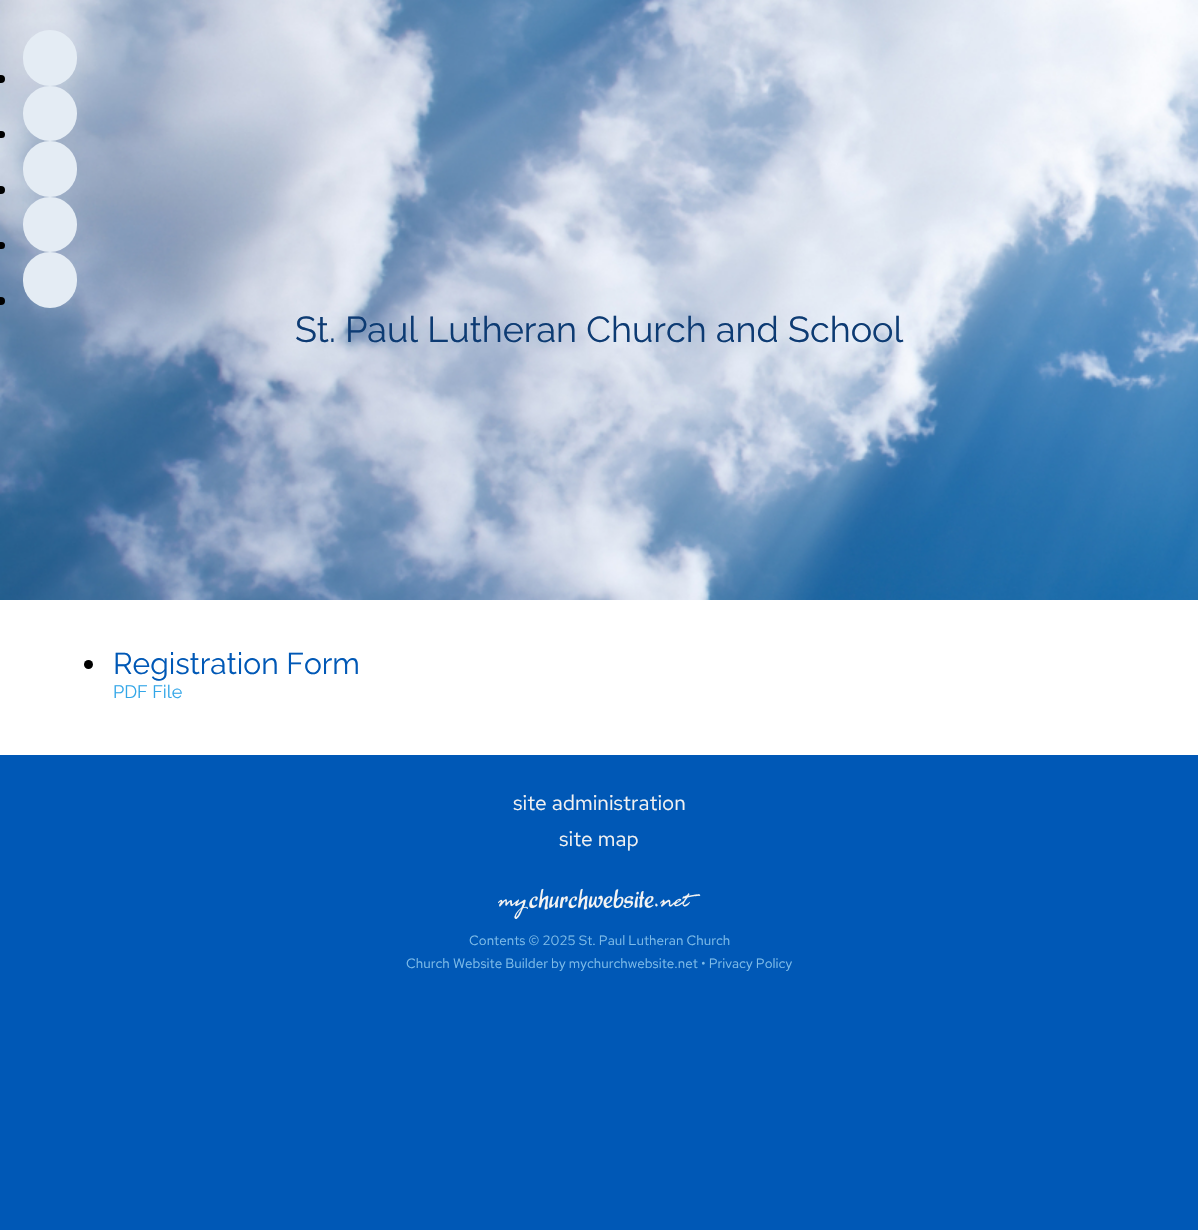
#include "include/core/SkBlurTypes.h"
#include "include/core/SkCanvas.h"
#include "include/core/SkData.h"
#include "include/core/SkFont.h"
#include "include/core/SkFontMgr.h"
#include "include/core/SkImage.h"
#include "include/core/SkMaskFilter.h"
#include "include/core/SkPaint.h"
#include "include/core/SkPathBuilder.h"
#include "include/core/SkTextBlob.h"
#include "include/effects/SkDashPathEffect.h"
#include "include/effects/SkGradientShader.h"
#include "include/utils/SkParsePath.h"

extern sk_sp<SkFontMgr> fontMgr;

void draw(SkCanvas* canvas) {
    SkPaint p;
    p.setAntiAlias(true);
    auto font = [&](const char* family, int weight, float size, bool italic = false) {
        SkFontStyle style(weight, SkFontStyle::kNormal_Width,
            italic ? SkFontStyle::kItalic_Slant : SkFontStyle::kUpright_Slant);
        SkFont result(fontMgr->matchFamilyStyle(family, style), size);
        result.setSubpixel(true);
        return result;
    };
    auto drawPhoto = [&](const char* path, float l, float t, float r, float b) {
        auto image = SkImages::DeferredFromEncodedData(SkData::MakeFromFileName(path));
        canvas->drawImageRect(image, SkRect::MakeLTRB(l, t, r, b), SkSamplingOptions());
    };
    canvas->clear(0xFF0058B6);
    drawPhoto("media/1.png", 0, 0, 1198, 600);
    p.setColor(0xFF000000);
    canvas->drawCircle(1, 79, 4, p);
    p.setColor(0xFFE4ECF4);
    canvas->drawRoundRect(SkRect::MakeLTRB(23, 30, 77, 86), 27, 27, p);
    p.setColor(0xFF000000);
    canvas->drawRoundRect(SkRect::MakeLTRB(-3, 131, 5, 138), 3.5f, 3.5f, p);
    p.setColor(0xFFE4ECF4);
    canvas->drawRoundRect(SkRect::MakeLTRB(23, 86, 77, 141), 27, 27, p);
    p.setColor(0xFF000000);
    canvas->drawCircle(1, 190, 4, p);
    p.setColor(0xFFE4ECF4);
    canvas->drawRoundRect(SkRect::MakeLTRB(23, 141, 77, 197), 27, 27, p);
    p.setColor(0xFF000000);
    canvas->drawRoundRect(SkRect::MakeLTRB(-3, 242, 5, 249), 3.5f, 3.5f, p);
    p.setColor(0xFFE4ECF4);
    canvas->drawRoundRect(SkRect::MakeLTRB(23, 197, 77, 252), 27, 27, p);
    p.setColor(0xFF000000);
    canvas->drawCircle(1, 301, 4, p);
    p.setColor(0xFFE4ECF4);
    canvas->drawRoundRect(SkRect::MakeLTRB(23, 252, 77, 308), 27, 27, p);
    auto font1 = font("Raleway", 100, 36);
    p.setColor(0xFF0D3B73);
    canvas->drawString("St. Paul Lutheran Church and School", 295, 342, font1, p);
    p.setColor(0xFFFFFFFF);
    canvas->drawRect(SkRect::MakeLTRB(0, 600, 1198, 755), p);
    p.setColor(0xFF000000);
    canvas->drawCircle(88.5f, 664.5f, 4.5f, p);
    auto font2 = font("Raleway", 100, 30);
    p.setColor(0xFF0058B6);
    canvas->drawString("Registration Form", 113, 674, font2, p);
    auto font3 = font("Raleway", 100, 18);
    p.setColor(0xFF32A6E8);
    canvas->drawString("PDF File", 113, 698, font3, p);
    auto font4 = font("Red Hat Text", 400, 21);
    p.setColor(0xFFF2F2F2);
    canvas->drawString("site administration", 513, 810, font4, p);
    canvas->drawString("site map", 559, 846, font4, p);
    drawPhoto("media/2.png", 498, 888, 701, 920);
    auto font5 = font("Red Hat Text", 400, 13.5f);
    p.setColor(0xFF7EBCE9);
    canvas->drawString("Contents © 2025 St. Paul Lutheran Church", 469, 945, font5, p);
    canvas->drawString("Church Website Builder by mychurchwebsite.net • Privacy Policy", 406, 968, font5, p);
}
